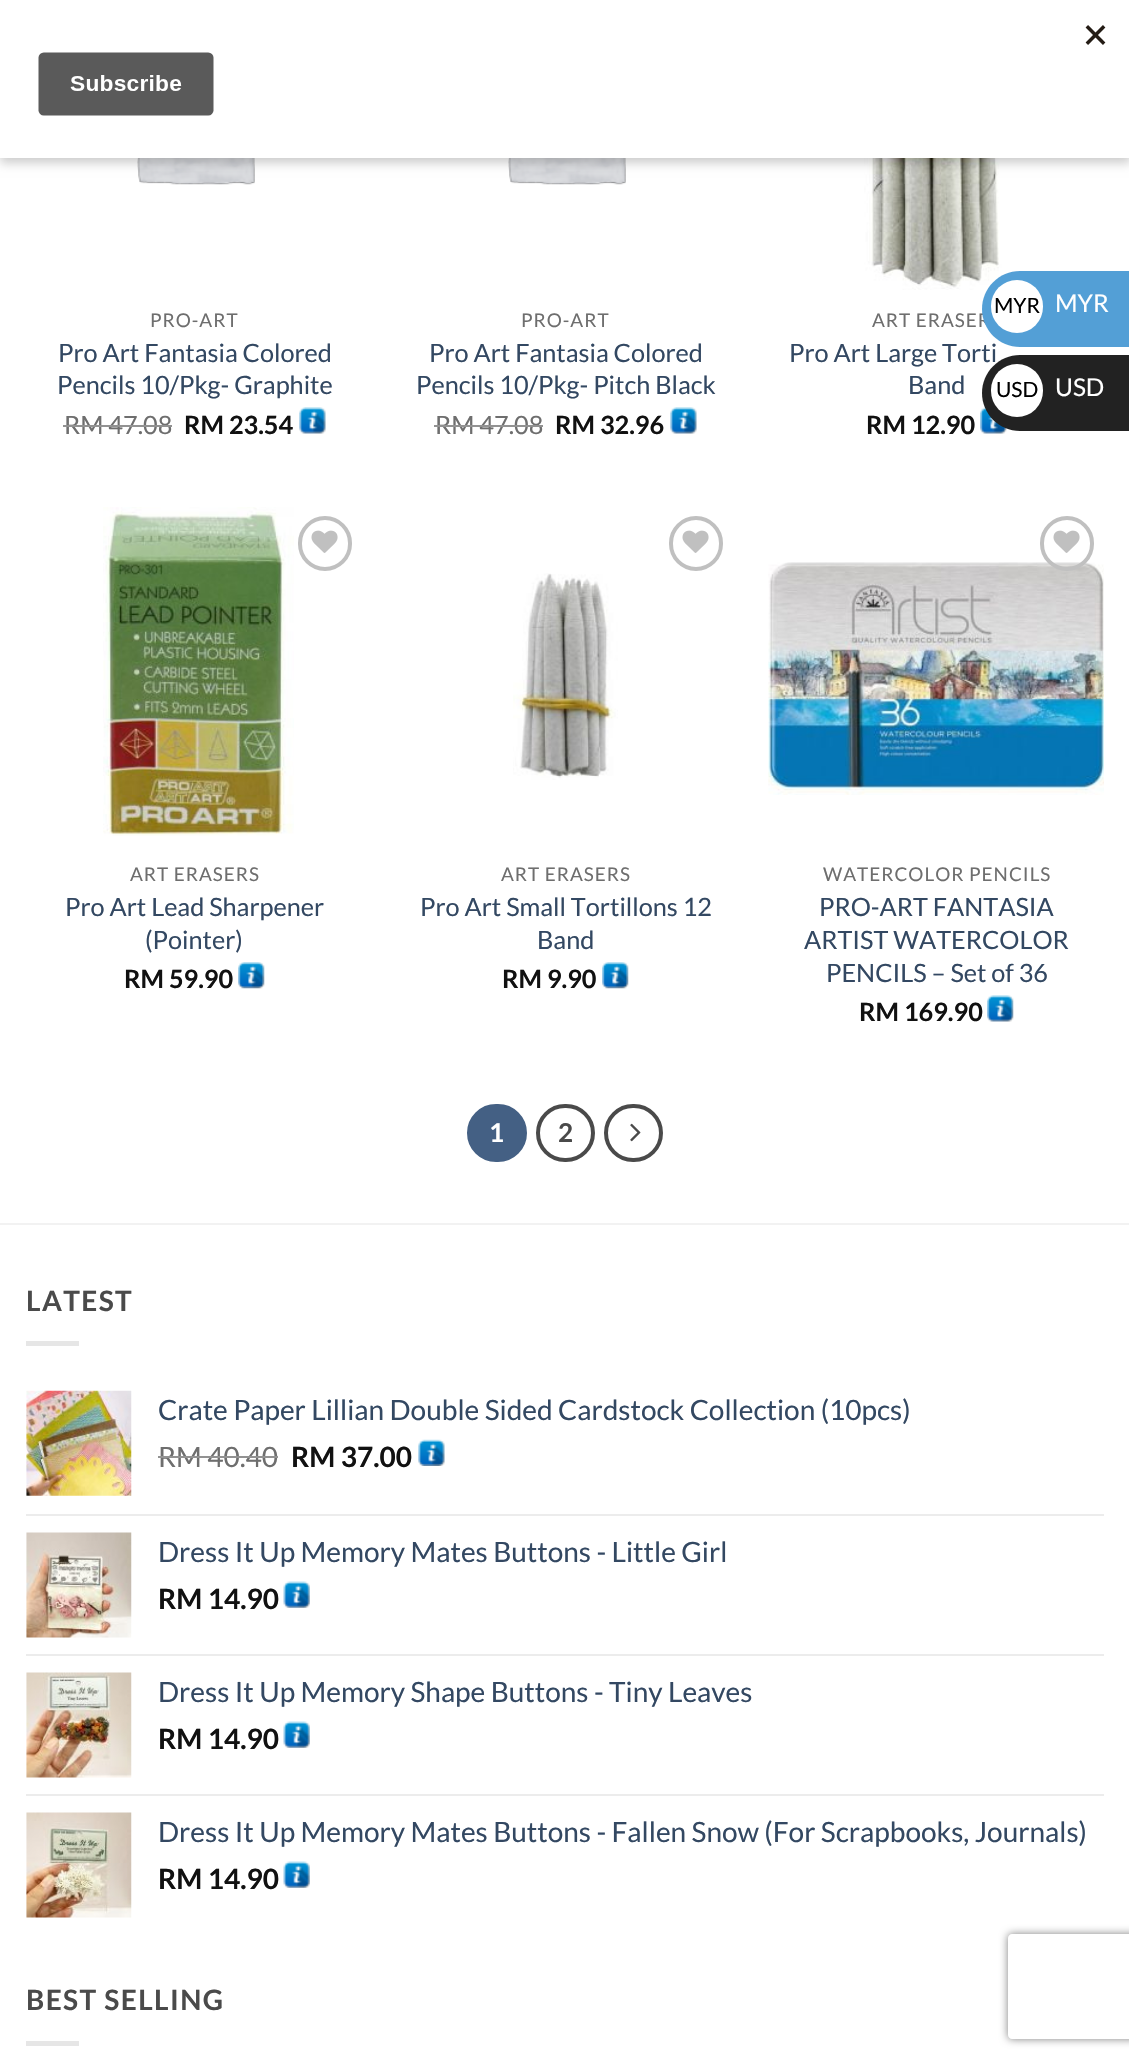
#include "include/core/SkBlurTypes.h"
#include "include/core/SkCanvas.h"
#include "include/core/SkData.h"
#include "include/core/SkFont.h"
#include "include/core/SkFontMgr.h"
#include "include/core/SkImage.h"
#include "include/core/SkMaskFilter.h"
#include "include/core/SkPaint.h"
#include "include/core/SkPathBuilder.h"
#include "include/core/SkTextBlob.h"
#include "include/effects/SkDashPathEffect.h"
#include "include/effects/SkGradientShader.h"
#include "include/utils/SkParsePath.h"

extern sk_sp<SkFontMgr> fontMgr;

void draw(SkCanvas* canvas) {
    SkPaint p;
    p.setAntiAlias(true);
    auto font = [&](const char* family, int weight, float size, bool italic = false) {
        SkFontStyle style(weight, SkFontStyle::kNormal_Width,
            italic ? SkFontStyle::kItalic_Slant : SkFontStyle::kUpright_Slant);
        SkFont result(fontMgr->matchFamilyStyle(family, style), size);
        result.setSubpixel(true);
        return result;
    };
    auto drawTracked = [&](const char* s, float x, float y, const SkFont& font, const SkPaint& ink, float letter, float word) {
        std::vector<SkGlyphID> glyphs(font.countText(s, strlen(s), SkTextEncoding::kUTF8));
        std::vector<float> xs(glyphs.size());
        font.textToGlyphs(s, strlen(s), SkTextEncoding::kUTF8, glyphs);
        font.getXPos(glyphs, xs, x);
        float extra = 0;
        for (size_t i = 0; i < glyphs.size(); i++) {
            xs[i] += extra;
            extra += letter + word * (glyphs[i] == font.unicharToGlyph(' '));
        }
        canvas->drawTextBlob(SkTextBlob::MakeFromPosHGlyphs(glyphs, xs, y, font), 0, 0, ink);
    };
    auto drawPhoto = [&](const char* path, float l, float t, float r, float b) {
        auto image = SkImages::DeferredFromEncodedData(SkData::MakeFromFileName(path));
        canvas->drawImageRect(image, SkRect::MakeLTRB(l, t, r, b), SkSamplingOptions());
    };
    canvas->clear(0xFFFFFFFF);
    drawPhoto("media/2.png", 137, 158, 256, 185);
    drawPhoto("media/2.png", 508, 158, 627, 185);
    drawPhoto("media/4.png", 864, 158, 1002, 290);
    p.setColor(0x33000000);
    p.setMaskFilter(SkMaskFilter::MakeBlur(kNormal_SkBlurStyle, 5));
    canvas->drawRect(SkRect::MakeLTRB(0, 5, 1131, 163), p);
    p.setMaskFilter(nullptr);
    p.setColor(0xFFFFFFFF);
    canvas->drawRect(SkRect::MakeLTRB(0, 0, 1129, 158), p);
    drawPhoto("media/1.png", 38, 25, 1106, 116);
    auto font1 = font("Lato", 400, 18.9f);
    p.setColor(0xFF6E6E6E);
    drawTracked("ART ERASER", 872, 327, font1, p, 1, 0);
    auto font2 = font("Lato", 400, 25.25f);
    p.setColor(0xFF334862);
    canvas->drawString("Pro Art Large Torti", 789, 362, font2, p);
    p.setColor(0xFF539FD6);
    canvas->drawPath(SkPathBuilder().moveTo(1020, 271).lineTo(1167, 271).lineTo(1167, 347).lineTo(1020, 347).cubicTo(999, 347, 982, 330, 982, 309).cubicTo(982, 288, 999, 271, 1020, 271).close().detach(), p);
    p.setColor(0xFFFFFFFF);
    canvas->drawRoundRect(SkRect::MakeLTRB(991, 280, 1043, 333), 26, 26, p);
    auto font3 = font("Lato", 400, 21);
    p.setColor(0xFF000000);
    canvas->drawString("MYR", 994, 313, font3, p);
    auto font4 = font("Lato", 400, 24.5f);
    p.setColor(0xFFFFFFFF);
    canvas->drawString("MYR", 1055, 312, font4, p);
    drawPhoto("media/5.png", 980, 407, 1007, 434);
    p.setColor(0xFF222222);
    canvas->drawPath(SkPathBuilder().moveTo(1020, 355).lineTo(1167, 355).lineTo(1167, 431).lineTo(1020, 431).cubicTo(999, 431, 982, 414, 982, 393).cubicTo(982, 372, 999, 355, 1020, 355).close().detach(), p);
    p.setColor(0xFFFFFFFF);
    canvas->drawRoundRect(SkRect::MakeLTRB(991, 364, 1043, 417), 26, 26, p);
    p.setColor(0xFF000000);
    canvas->drawString("USD", 996, 397, font3, p);
    p.setColor(0xFFFFFFFF);
    canvas->drawString("USD", 1055, 396, font4, p);
    p.setColor(0xFF6E6E6E);
    drawTracked("PRO-ART", 150, 327, font1, p, 1, 0);
    p.setColor(0xFF334862);
    canvas->drawString("Pro Art Fantasia Colored", 58, 362, font2, p);
    canvas->drawString("Pencils 10/Pkg- Graphite", 57, 394, font2, p);
    p.setColor(0xFF6E6E6E);
    canvas->drawString("RM 47.08", 64, 434, font2, p);
    p.setColor(0xFF929292);
    canvas->drawRect(SkRect::MakeLTRB(63, 425, 172, 427), p);
    auto font5 = font("Lato", 700, 25.25f);
    p.setColor(0xFF111111);
    canvas->drawString("RM 23.54", 184, 434, font5, p);
    drawPhoto("media/3.png", 299, 407, 326, 434);
    p.setColor(0xFF6E6E6E);
    drawTracked("PRO-ART", 521, 327, font1, p, 1, 0);
    p.setColor(0xFF334862);
    canvas->drawString("Pro Art Fantasia Colored", 429, 362, font2, p);
    canvas->drawString("Pencils 10/Pkg- Pitch Black", 416, 394, font2, p);
    p.setColor(0xFF6E6E6E);
    canvas->drawString("RM 47.08", 435, 434, font2, p);
    p.setColor(0xFF929292);
    canvas->drawRect(SkRect::MakeLTRB(434, 425, 543, 427), p);
    p.setColor(0xFF111111);
    canvas->drawString("RM 32.96", 555, 434, font5, p);
    drawPhoto("media/3.png", 670, 407, 697, 434);
    p.setColor(0xFF334862);
    canvas->drawString("Band", 908, 394, font2, p);
    p.setColor(0xFF111111);
    canvas->drawString("RM 12.90", 866, 434, font5, p);
    drawPhoto("media/6.png", 103, 507, 294, 836);
    p.setStyle(SkPaint::kStroke_Style);
    p.setStrokeWidth(4);
    p.setColor(0xFFC0C0C0);
    canvas->drawRoundRect(SkRect::MakeLTRB(300, 518, 350, 569), 25, 25, p);
    drawPhoto("media/7.png", 311, 530, 338, 553);
    p.setStyle(SkPaint::kFill_Style);
    p.setColor(0xFF6E6E6E);
    drawTracked("ART ERASERS", 130, 881, font1, p, 1, 0);
    p.setColor(0xFF334862);
    canvas->drawString("Pro Art Lead Sharpener", 65, 916, font2, p);
    canvas->drawString("(Pointer)", 145, 949, font2, p);
    p.setColor(0xFF111111);
    canvas->drawString("RM 59.90", 124, 988, font5, p);
    drawPhoto("media/8.png", 238, 962, 265, 989);
    p.setStyle(SkPaint::kStroke_Style);
    p.setColor(0xFFC0C0C0);
    canvas->drawRoundRect(SkRect::MakeLTRB(671, 518, 721, 569), 25, 25, p);
    drawPhoto("media/7.png", 682, 530, 709, 553);
    drawPhoto("media/9.png", 513, 573, 618, 780);
    p.setStyle(SkPaint::kFill_Style);
    p.setColor(0xFF6E6E6E);
    drawTracked("ART ERASERS", 501, 881, font1, p, 1, 0);
    p.setColor(0xFF334862);
    canvas->drawString("Pro Art Small Tortillons 12", 420, 916, font2, p);
    canvas->drawString("Band", 537, 949, font2, p);
    p.setColor(0xFF111111);
    canvas->drawString("RM 9.90", 502, 988, font5, p);
    drawPhoto("media/8.png", 602, 962, 629, 989);
    drawPhoto("media/10.png", 768, 562, 1104, 795);
    p.setStyle(SkPaint::kStroke_Style);
    p.setColor(0xFFC0C0C0);
    canvas->drawRoundRect(SkRect::MakeLTRB(1042, 518, 1092, 569), 25, 25, p);
    drawPhoto("media/7.png", 1053, 530, 1080, 553);
    p.setStyle(SkPaint::kFill_Style);
    p.setColor(0xFF6E6E6E);
    drawTracked("WATERCOLOR PENCILS", 823, 881, font1, p, 1, 0);
    p.setColor(0xFF334862);
    {
        const struct { const char* s; float x, y; } items[] = {
            {"PRO-ART FANTASIA", 819, 916},
            {"ARTIST WATERCOLOR", 804, 949},
            {"PENCILS – Set of 36", 826, 982},
        };
        for (auto [s, x, y] : items) {
            canvas->drawString(s, x, y, font2, p);
        }
    }
    p.setColor(0xFF111111);
    canvas->drawString("RM 169.90", 859, 1021, font5, p);
    drawPhoto("media/5.png", 987, 995, 1014, 1022);
    p.setColor(0xFF446084);
    canvas->drawRoundRect(SkRect::MakeLTRB(469, 1106, 525, 1160), 27, 27, p);
    p.setStyle(SkPaint::kStroke_Style);
    canvas->drawRoundRect(SkRect::MakeLTRB(469, 1106, 525, 1160), 27, 27, p);
    auto font6 = font("Lato", 700, 26);
    p.setStyle(SkPaint::kFill_Style);
    p.setColor(0xFFFFFFFF);
    canvas->drawString("1", 489, 1142, font6, p);
    p.setStyle(SkPaint::kStroke_Style);
    p.setColor(0xFF4A4A4A);
    canvas->drawRoundRect(SkRect::MakeLTRB(538, 1106, 593, 1160), 27, 27, p);
    p.setStyle(SkPaint::kFill_Style);
    canvas->drawString("2", 558, 1142, font6, p);
    p.setStyle(SkPaint::kStroke_Style);
    canvas->drawRoundRect(SkRect::MakeLTRB(606, 1106, 661, 1160), 27, 27, p);
    drawPhoto("media/11.png", 630, 1123, 641, 1142);
    p.setStyle(SkPaint::kFill_Style);
    p.setColor(0xFFF2F2F2);
    canvas->drawRect(SkRect::MakeLTRB(0, 1223, 1129, 1225), p);
    auto font7 = font("Lato", 700, 28);
    p.setColor(0xFF4A4A4A);
    drawTracked("LATEST", 26, 1311, font7, p, 1.4f, 0);
    p.setColor(0xFFE6E6E6);
    canvas->drawRect(SkRect::MakeLTRB(26, 1341, 79, 1346), p);
    drawPhoto("media/12.png", 26, 1390, 132, 1496);
    auto font8 = font("Lato", 400, 28);
    p.setColor(0xFF334862);
    canvas->drawString("Crate Paper Lillian Double Sided Cardstock Collection (10pcs)", 158, 1420, font8, p);
    p.setColor(0xFF6E6E6E);
    canvas->drawString("RM 40.40", 158, 1467, font8, p);
    p.setColor(0xFF929292);
    canvas->drawRect(SkRect::MakeLTRB(158, 1456, 278, 1458), p);
    p.setColor(0xFF111111);
    canvas->drawString("RM 37.00", 291, 1467, font7, p);
    drawPhoto("media/13.png", 418, 1439, 445, 1466);
    p.setColor(0xFFECECEC);
    canvas->drawRect(SkRect::MakeLTRB(26, 1514, 1104, 1516), p);
    drawPhoto("media/14.png", 26, 1532, 132, 1638);
    p.setColor(0xFF334862);
    canvas->drawString("Dress It Up Memory Mates Buttons - Little Girl", 158, 1562, font8, p);
    p.setColor(0xFF111111);
    canvas->drawString("RM 14.90", 158, 1609, font7, p);
    drawPhoto("media/15.png", 283, 1581, 310, 1608);
    p.setColor(0xFFECECEC);
    canvas->drawRect(SkRect::MakeLTRB(26, 1654, 1104, 1656), p);
    drawPhoto("media/16.png", 26, 1672, 132, 1778);
    p.setColor(0xFF334862);
    canvas->drawString("Dress It Up Memory Shape Buttons - Tiny Leaves", 158, 1702, font8, p);
    p.setColor(0xFF111111);
    canvas->drawString("RM 14.90", 158, 1749, font7, p);
    drawPhoto("media/15.png", 283, 1721, 310, 1748);
    p.setColor(0xFFECECEC);
    canvas->drawRect(SkRect::MakeLTRB(26, 1794, 1104, 1796), p);
    drawPhoto("media/17.png", 26, 1812, 132, 1918);
    p.setColor(0xFF334862);
    canvas->drawString("Dress It Up Memory Mates Buttons - Fallen Snow (For Scrapbooks, Journals)", 158, 1842, font8, p);
    p.setColor(0xFF111111);
    canvas->drawString("RM 14.90", 158, 1889, font7, p);
    drawPhoto("media/15.png", 283, 1861, 310, 1888);
    p.setColor(0xFF4A4A4A);
    drawTracked("BEST SELLING", 26, 2010, font7, p, 1.4f, 0);
    p.setColor(0xFFE6E6E6);
    canvas->drawRect(SkRect::MakeLTRB(26, 2041, 79, 2046), p);
    canvas->save();
    canvas->clipPath(SkPathBuilder(SkPathFillType::kEvenOdd).moveTo(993, 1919).lineTo(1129, 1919).lineTo(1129, 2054).lineTo(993, 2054).close().moveTo(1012, 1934).lineTo(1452, 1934).cubicTo(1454, 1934, 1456, 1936, 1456, 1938).lineTo(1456, 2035).cubicTo(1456, 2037, 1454, 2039, 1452, 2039).lineTo(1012, 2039).cubicTo(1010, 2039, 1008, 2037, 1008, 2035).lineTo(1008, 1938).cubicTo(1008, 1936, 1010, 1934, 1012, 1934).close().detach(), true);
    p.setColor(0xFF808080);
    p.setMaskFilter(SkMaskFilter::MakeBlur(kNormal_SkBlurStyle, 4.5f));
    canvas->drawRoundRect(SkRect::MakeLTRB(1008, 1934, 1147, 2039), 4, 4, p);
    p.setMaskFilter(nullptr);
    canvas->restore();
}
